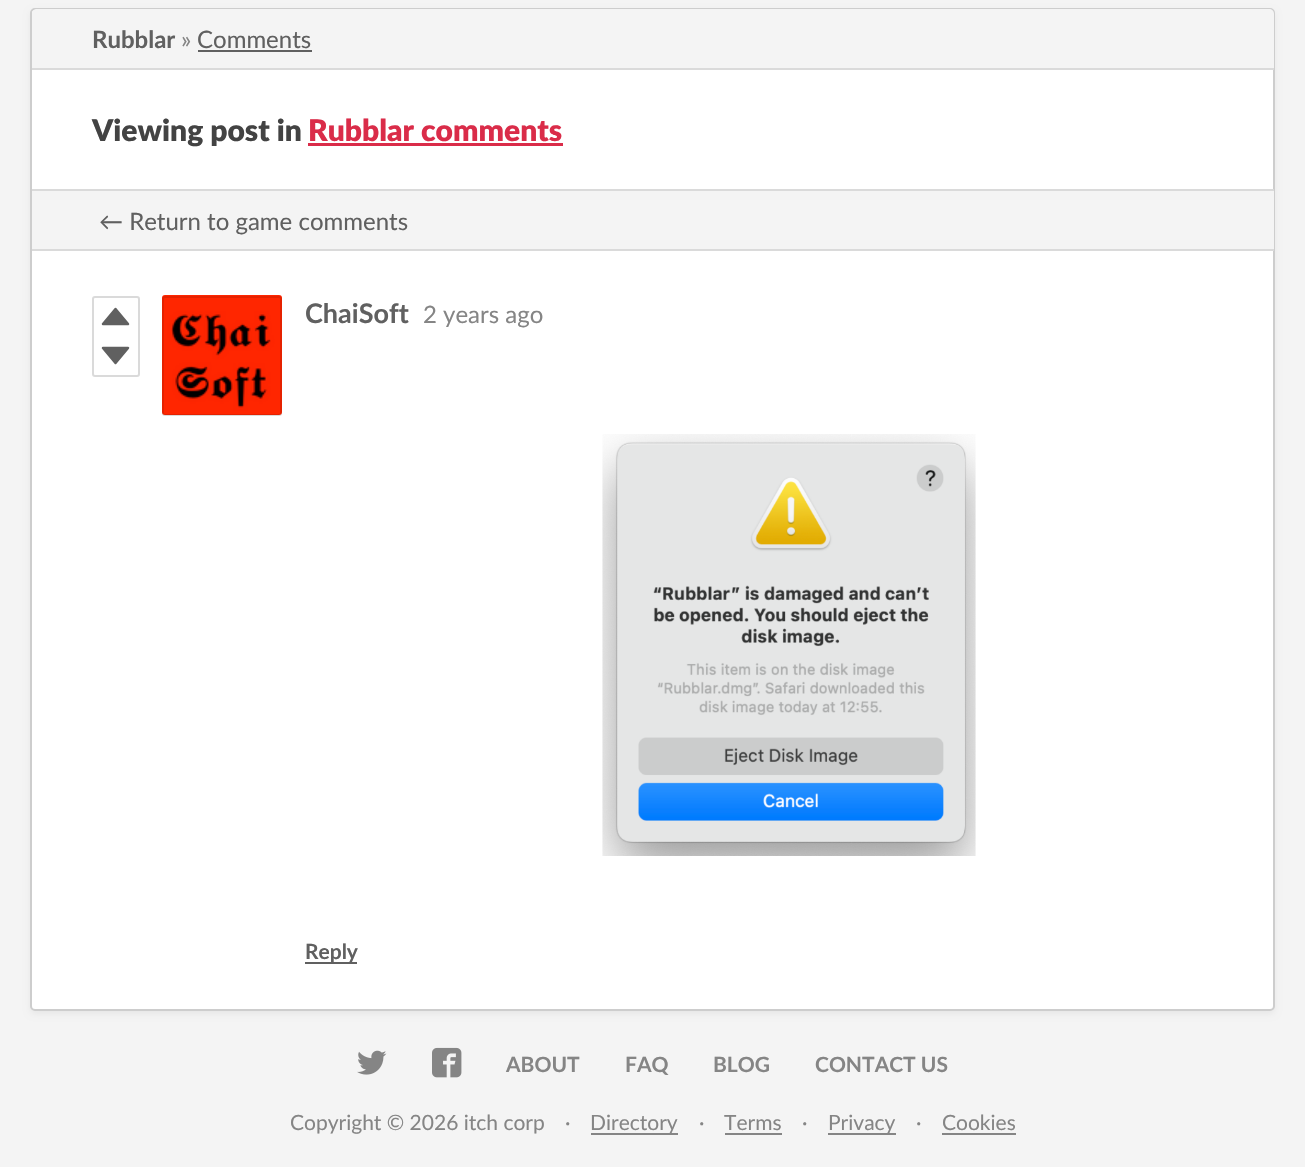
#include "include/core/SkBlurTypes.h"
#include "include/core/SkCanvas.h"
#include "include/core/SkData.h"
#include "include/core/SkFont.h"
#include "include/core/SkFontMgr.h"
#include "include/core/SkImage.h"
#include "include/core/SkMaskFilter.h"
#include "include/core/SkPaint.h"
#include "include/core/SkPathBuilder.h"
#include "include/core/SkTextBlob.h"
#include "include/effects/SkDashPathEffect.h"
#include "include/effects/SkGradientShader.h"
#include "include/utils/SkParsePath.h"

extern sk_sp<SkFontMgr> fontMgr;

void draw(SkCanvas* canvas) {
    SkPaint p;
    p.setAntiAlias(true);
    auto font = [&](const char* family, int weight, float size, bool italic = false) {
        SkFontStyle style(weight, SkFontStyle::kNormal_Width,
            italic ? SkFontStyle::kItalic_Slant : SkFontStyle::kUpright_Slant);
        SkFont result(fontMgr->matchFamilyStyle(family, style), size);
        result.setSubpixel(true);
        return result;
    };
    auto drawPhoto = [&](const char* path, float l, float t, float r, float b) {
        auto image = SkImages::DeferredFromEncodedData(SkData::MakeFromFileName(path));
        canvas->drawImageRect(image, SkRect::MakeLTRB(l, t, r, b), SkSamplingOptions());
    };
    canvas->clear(0xFFF4F4F4);
    p.setColor(0x0D000000);
    p.setMaskFilter(SkMaskFilter::MakeBlur(kNormal_SkBlurStyle, 3));
    canvas->drawRoundRect(SkRect::MakeLTRB(30, 11, 1275, 1014), 5, 5, p);
    p.setMaskFilter(nullptr);
    p.setColor(0xFFFFFFFF);
    canvas->drawRoundRect(SkRect::MakeLTRB(31, 9, 1274, 1010), 4, 4, p);
    p.setStyle(SkPaint::kStroke_Style);
    p.setStrokeWidth(2);
    p.setColor(0xFFCDCDCD);
    canvas->drawRoundRect(SkRect::MakeLTRB(31, 9, 1274, 1010), 4, 4, p);
    p.setStyle(SkPaint::kFill_Style);
    p.setColor(0xFFF4F4F4);
    canvas->drawPath(SkPathBuilder().moveTo(37, 9).lineTo(1269, 9).cubicTo(1272, 9, 1274, 11, 1274, 14).lineTo(1274, 69).lineTo(32, 69).lineTo(32, 14).cubicTo(32, 11, 34, 9, 37, 9).close().detach(), p);
    p.setColor(0xFFDADADA);
    canvas->drawRect(SkRect::MakeLTRB(32, 68, 1274, 70), p);
    auto font1 = font("Lato", 700, 24);
    p.setColor(0xFF606060);
    canvas->drawString("Rubblar", 92, 48, font1, p);
    auto font2 = font("Lato", 400, 24);
    p.setColor(0xFF858585);
    canvas->drawString("»", 181, 48, font2, p);
    p.setColor(0xFF606060);
    canvas->drawString("Comments", 197, 48, font2, p);
    canvas->drawRect(SkRect::MakeLTRB(198, 50, 312, 52), p);
    p.setColor(0xFFDADADA);
    canvas->drawRect(SkRect::MakeLTRB(32, 189, 1274, 191), p);
    auto font3 = font("Lato", 900, 30);
    p.setColor(0xFF434343);
    canvas->drawString("Viewing post in", 92, 141, font3, p);
    p.setColor(0xFFDA2C49);
    canvas->drawString("Rubblar comments", 308, 141, font3, p);
    {
        const struct { float l, t, r, b; SkColor color; } items[] = {
            {308, 143, 563, 146, 0xFFDA2C49},
            {32, 191, 1274, 249, 0xFFF4F4F4},
            {32, 249, 1274, 251, 0xFFDADADA},
        };
        for (auto [l, t, r, b, color] : items) {
            p.setColor(color);
            canvas->drawRect(SkRect::MakeLTRB(l, t, r, b), p);
        }
    }
    p.setColor(0xFF606060);
    canvas->drawString("← Return to game comments", 99, 230, font2, p);
    p.setStyle(SkPaint::kStroke_Style);
    p.setColor(0xFFDADADA);
    canvas->drawRoundRect(SkRect::MakeLTRB(93, 297, 139, 376), 2, 2, p);
    p.setStyle(SkPaint::kFill_Style);
    p.setColor(0xFF606060);
    canvas->drawPath(SkPathBuilder().moveTo(103, 324).lineTo(115.5f, 309).lineTo(128, 324).close().detach(), p);
    p.setStyle(SkPaint::kStroke_Style);
    p.setStrokeWidth(2.5f);
    p.setStrokeJoin(SkPaint::kRound_Join);
    canvas->drawPath(SkPathBuilder().moveTo(103, 324).lineTo(115.5f, 309).lineTo(128, 324).close().detach(), p);
    p.setStyle(SkPaint::kFill_Style);
    canvas->drawPath(SkPathBuilder().moveTo(103, 348).lineTo(115.5f, 363).lineTo(128, 348).close().detach(), p);
    p.setStyle(SkPaint::kStroke_Style);
    canvas->drawPath(SkPathBuilder().moveTo(103, 348).lineTo(115.5f, 363).lineTo(128, 348).close().detach(), p);
    p.setStyle(SkPaint::kFill_Style);
    p.setColor(0xFFF4F4F4);
    canvas->drawRoundRect(SkRect::MakeLTRB(162, 296, 282, 416), 3, 3, p);
    drawPhoto("media/1.png", 162, 295, 282, 415);
    p.setStyle(SkPaint::kStroke_Style);
    p.setStrokeWidth(2);
    p.setStrokeJoin(SkPaint::kMiter_Join);
    p.setColor(0x1A000000);
    canvas->drawRoundRect(SkRect::MakeLTRB(163, 297, 281, 415), 2, 2, p);
    auto font4 = font("Lato", 700, 27);
    p.setStyle(SkPaint::kFill_Style);
    p.setColor(0xFF606060);
    canvas->drawString("ChaiSoft", 305, 323, font4, p);
    p.setColor(0xFF858585);
    canvas->drawString("2 years ago", 423, 323, font2, p);
    drawPhoto("media/2.png", 602, 434, 976, 856);
    p.setColor(0xFF606060);
    canvas->drawRect(SkRect::MakeLTRB(305, 962, 357, 964), p);
    auto font5 = font("Lato", 700, 21);
    canvas->drawString("Reply", 305, 959, font5, p);
    drawPhoto("media/3.png", 357, 1050, 387, 1075);
    drawPhoto("media/4.png", 432, 1047, 462, 1078);
    p.setColor(0xFF858585);
    {
        const struct { const char* s; float x, y; } items[] = {
            {"ABOUT", 506, 1072},
            {"FAQ", 625, 1072},
            {"BLOG", 713, 1072},
            {"CONTACT US", 815, 1072},
        };
        for (auto [s, x, y] : items) {
            canvas->drawString(s, x, y, font5, p);
        }
    }
    auto font6 = font("Lato", 400, 21);
    canvas->drawString("Copyright © 2026 itch corp", 290, 1130, font6, p);
    canvas->drawString("·", 565, 1130, font6, p);
    canvas->drawRect(SkRect::MakeLTRB(591, 1133, 678, 1135), p);
    {
        const struct { const char* s; float x, y; } items[] = {
            {"Directory", 590, 1130},
            {"·", 699, 1130},
            {"Terms", 724, 1130},
        };
        for (auto [s, x, y] : items) {
            canvas->drawString(s, x, y, font6, p);
        }
    }
    canvas->drawRect(SkRect::MakeLTRB(725, 1133, 782, 1135), p);
    canvas->drawString("·", 802, 1130, font6, p);
    canvas->drawRect(SkRect::MakeLTRB(828, 1133, 896, 1135), p);
    {
        const struct { const char* s; float x, y; } items[] = {
            {"Privacy", 828, 1130},
            {"·", 916, 1130},
            {"Cookies", 942, 1130},
        };
        for (auto [s, x, y] : items) {
            canvas->drawString(s, x, y, font6, p);
        }
    }
    canvas->drawRect(SkRect::MakeLTRB(942, 1133, 1016, 1135), p);
}
